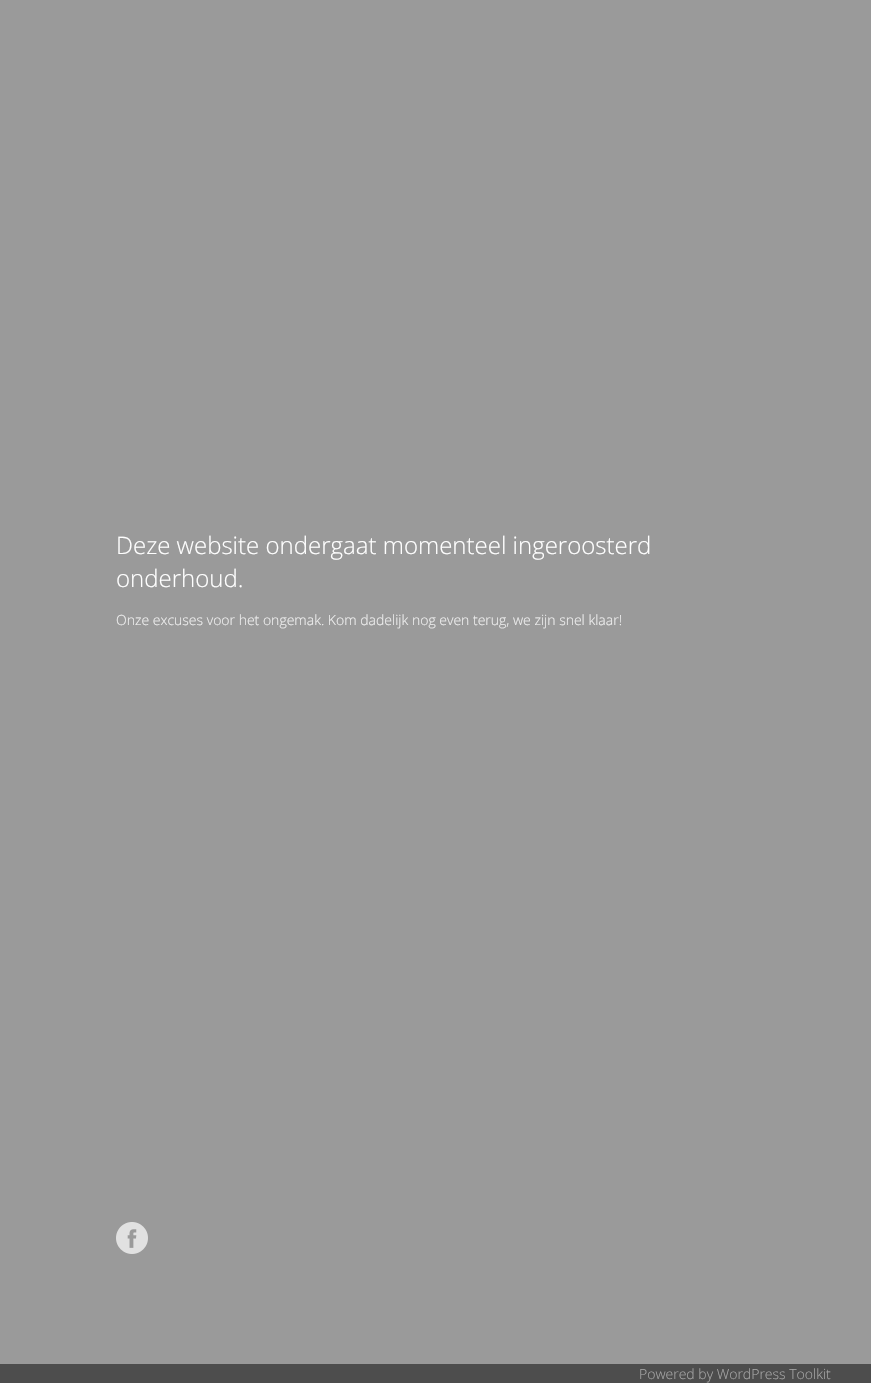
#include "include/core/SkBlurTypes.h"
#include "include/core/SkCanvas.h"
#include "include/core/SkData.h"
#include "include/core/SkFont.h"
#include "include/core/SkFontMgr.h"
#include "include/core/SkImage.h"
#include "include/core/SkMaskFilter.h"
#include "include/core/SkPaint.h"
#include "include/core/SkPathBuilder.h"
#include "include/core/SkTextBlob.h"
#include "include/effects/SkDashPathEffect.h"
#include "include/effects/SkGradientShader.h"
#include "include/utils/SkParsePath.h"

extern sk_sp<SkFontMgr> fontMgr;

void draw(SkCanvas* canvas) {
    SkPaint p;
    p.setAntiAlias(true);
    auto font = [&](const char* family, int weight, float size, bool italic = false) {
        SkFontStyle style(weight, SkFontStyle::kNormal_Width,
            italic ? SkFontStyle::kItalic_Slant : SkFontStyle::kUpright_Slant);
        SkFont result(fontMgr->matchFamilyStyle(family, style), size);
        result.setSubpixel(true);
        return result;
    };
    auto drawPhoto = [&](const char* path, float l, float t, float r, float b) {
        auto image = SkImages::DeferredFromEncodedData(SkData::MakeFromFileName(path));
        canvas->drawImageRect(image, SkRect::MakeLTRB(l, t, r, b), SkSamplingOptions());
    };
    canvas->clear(0xFF9A9A9A);
    auto font1 = font("Open Sans", 300, 24);
    p.setColor(0xFFFFFFFF);
    canvas->drawString("Deze website ondergaat momenteel ingeroosterd", 116, 554, font1, p);
    canvas->drawString("onderhoud.", 116, 587, font1, p);
    auto font2 = font("Open Sans", 300, 14);
    p.setColor(0xFFF0F0F0);
    canvas->drawString("Onze excuses voor het ongemak. Kom dadelijk nog even terug, we zijn snel klaar!", 116, 625, font2, p);
    drawPhoto("media/1.png", 116, 1222, 148, 1254);
    p.setColor(0xFF4D4D4D);
    canvas->drawRect(SkRect::MakeLTRB(0, 1364, 871, 1383), p);
    p.setColor(0xFFA6A6A6);
    canvas->drawString("Powered by WordPress Toolkit", 639, 1379, font2, p);
}
